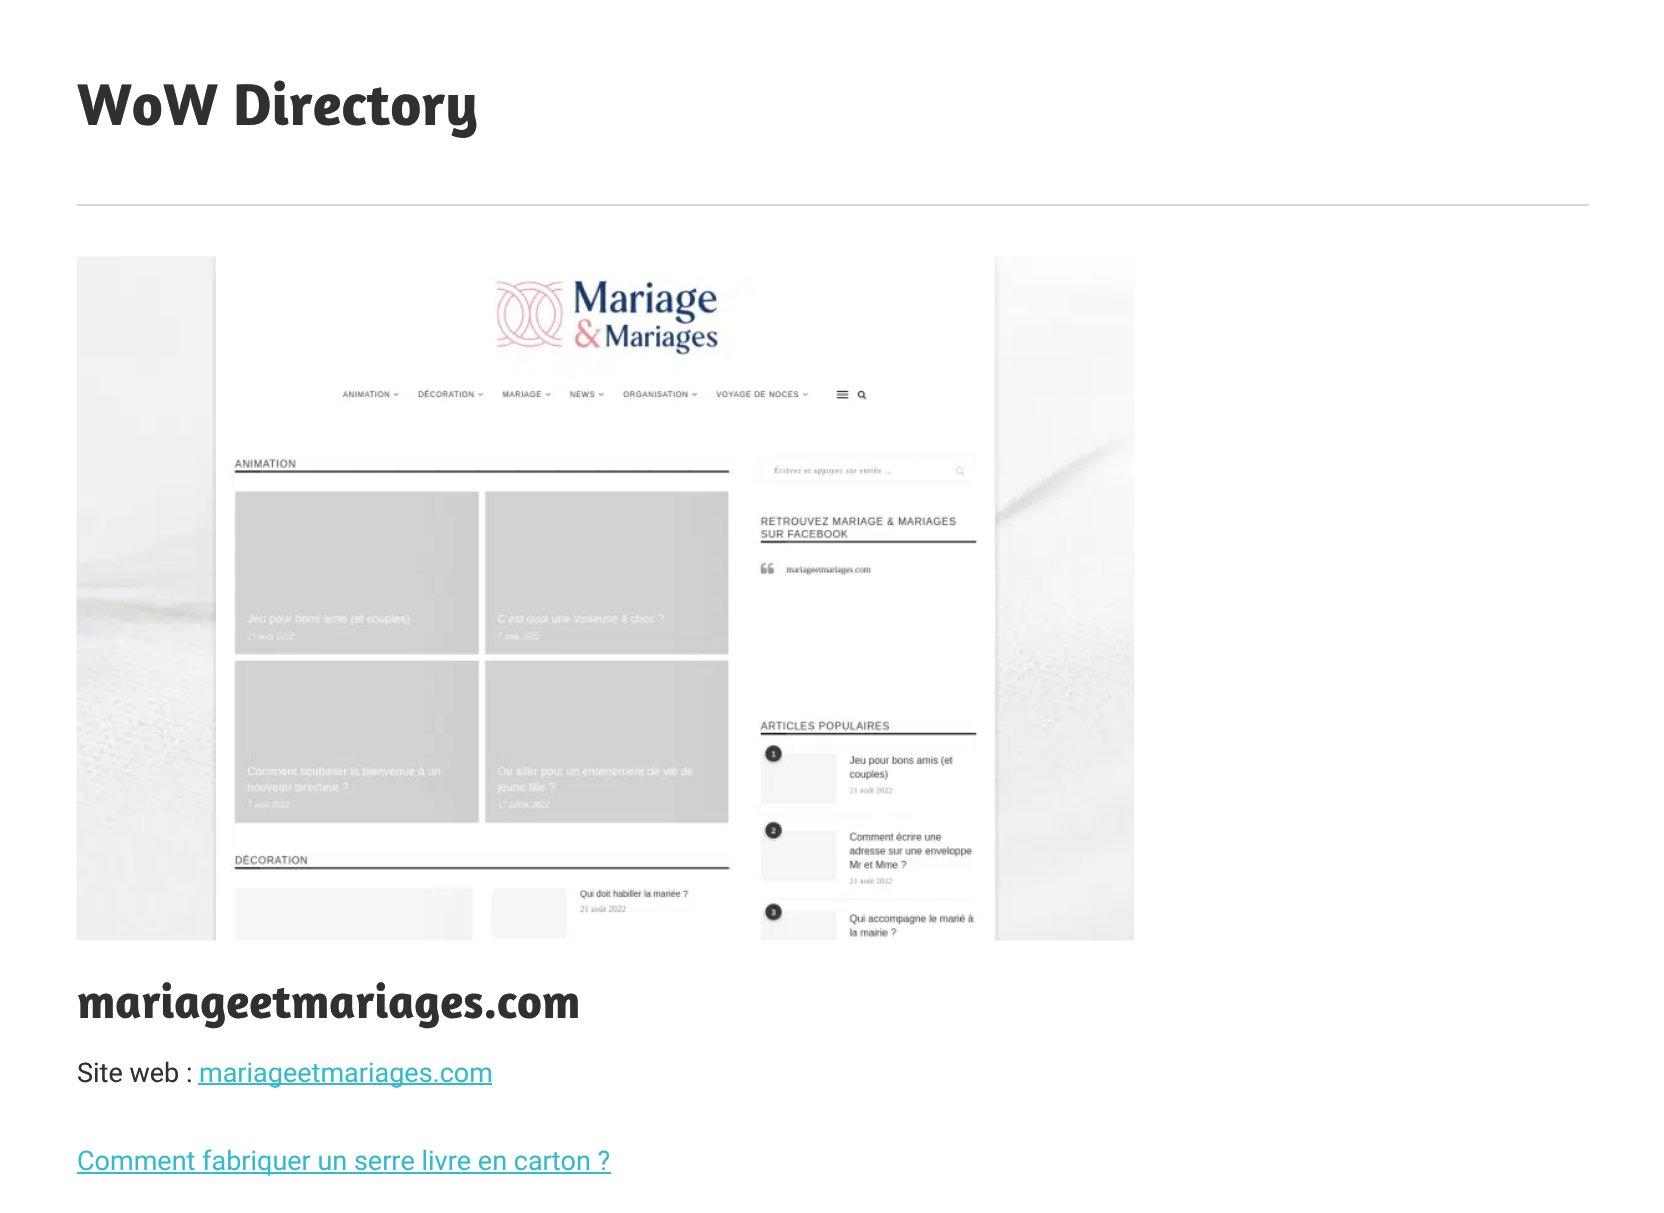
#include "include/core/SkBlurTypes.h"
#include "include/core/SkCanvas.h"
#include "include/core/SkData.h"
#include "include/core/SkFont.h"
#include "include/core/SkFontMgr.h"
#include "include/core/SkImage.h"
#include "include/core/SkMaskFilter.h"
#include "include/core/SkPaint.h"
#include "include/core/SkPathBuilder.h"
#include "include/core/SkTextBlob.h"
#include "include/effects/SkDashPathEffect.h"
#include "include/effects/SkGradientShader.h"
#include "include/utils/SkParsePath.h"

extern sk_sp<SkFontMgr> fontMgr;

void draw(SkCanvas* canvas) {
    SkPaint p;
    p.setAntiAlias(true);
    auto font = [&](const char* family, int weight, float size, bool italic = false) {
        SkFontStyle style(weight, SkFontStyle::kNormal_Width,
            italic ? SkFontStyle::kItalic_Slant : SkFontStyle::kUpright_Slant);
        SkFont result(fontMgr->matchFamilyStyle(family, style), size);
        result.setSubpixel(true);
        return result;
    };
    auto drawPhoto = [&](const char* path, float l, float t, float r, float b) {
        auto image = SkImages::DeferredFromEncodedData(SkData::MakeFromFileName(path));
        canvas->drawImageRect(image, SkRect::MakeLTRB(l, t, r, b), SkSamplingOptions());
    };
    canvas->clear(0xFFFFFFFF);
    auto font1 = font("Amaranth", 700, 60);
    p.setColor(0xFF303030);
    canvas->drawString("WoW Directory", 77, 125, font1, p);
    p.setColor(0xFFD9D9D9);
    canvas->drawRect(SkRect::MakeLTRB(77, 204, 1589, 206), p);
    drawPhoto("media/1.png", 76, 256, 1134, 941);
    auto font2 = font("Amaranth", 700, 48);
    p.setColor(0xFF303030);
    canvas->drawString("mariageetmariages.com", 77, 1018, font2, p);
    auto font3 = font("Roboto", 400, 27);
    canvas->drawString("Site web :", 77, 1082, font3, p);
    p.setColor(0xFF33BBCC);
    canvas->drawRect(SkRect::MakeLTRB(198, 1083, 492, 1085), p);
    canvas->drawString("mariageetmariages.com", 199, 1082, font3, p);
    canvas->drawRect(SkRect::MakeLTRB(77, 1172, 611, 1174), p);
    canvas->drawString("Comment fabriquer un serre livre en carton ?", 77, 1170, font3, p);
}
